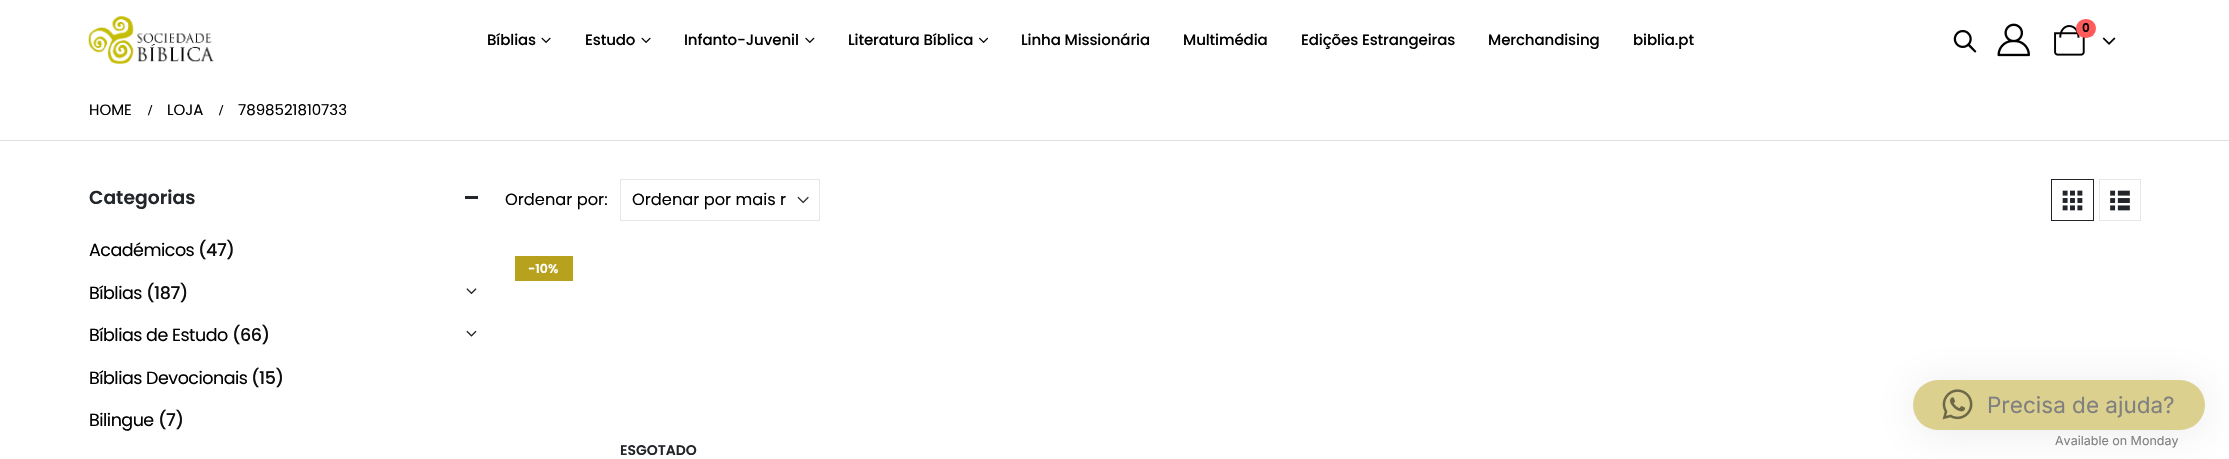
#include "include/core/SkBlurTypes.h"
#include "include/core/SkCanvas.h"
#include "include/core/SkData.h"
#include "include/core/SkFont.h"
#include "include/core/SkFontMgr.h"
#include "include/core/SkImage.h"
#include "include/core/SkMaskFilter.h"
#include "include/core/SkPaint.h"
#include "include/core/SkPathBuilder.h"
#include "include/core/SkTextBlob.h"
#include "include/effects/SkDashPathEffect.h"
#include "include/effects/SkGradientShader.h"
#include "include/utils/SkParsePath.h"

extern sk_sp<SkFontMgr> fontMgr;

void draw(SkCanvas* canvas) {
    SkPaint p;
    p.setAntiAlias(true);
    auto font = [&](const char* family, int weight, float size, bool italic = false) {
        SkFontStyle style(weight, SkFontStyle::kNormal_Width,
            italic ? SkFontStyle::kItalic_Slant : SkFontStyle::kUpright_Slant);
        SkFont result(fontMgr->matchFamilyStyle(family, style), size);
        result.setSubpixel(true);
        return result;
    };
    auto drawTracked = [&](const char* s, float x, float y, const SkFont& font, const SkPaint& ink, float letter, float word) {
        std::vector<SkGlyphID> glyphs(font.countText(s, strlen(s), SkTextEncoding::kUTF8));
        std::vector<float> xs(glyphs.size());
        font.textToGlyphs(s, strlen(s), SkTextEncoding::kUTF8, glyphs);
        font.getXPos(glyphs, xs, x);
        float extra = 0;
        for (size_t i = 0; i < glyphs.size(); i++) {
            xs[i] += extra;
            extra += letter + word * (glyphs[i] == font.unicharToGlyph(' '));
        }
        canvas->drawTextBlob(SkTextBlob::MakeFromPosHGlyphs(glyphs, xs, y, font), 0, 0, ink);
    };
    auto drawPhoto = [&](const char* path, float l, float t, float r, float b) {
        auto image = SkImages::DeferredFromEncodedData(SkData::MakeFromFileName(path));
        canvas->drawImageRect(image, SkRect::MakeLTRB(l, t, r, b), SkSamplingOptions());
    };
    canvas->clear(0xFFFFFFFF);
    drawPhoto("media/1.png", 88, 16, 214, 64);
    drawPhoto("media/2.png", 1997, 23, 2030, 57);
    drawPhoto("media/3.png", 2054, 25, 2085, 56);
    p.setColor(0xFFFF5B5B);
    canvas->drawRoundRect(SkRect::MakeLTRB(2076, 19, 2096, 38), 9.5f, 9.5f, p);
    auto font1 = font("Poppins", 600, 12);
    p.setColor(0xFF000000);
    canvas->drawString("0", 2082, 32, font1, p);
    drawPhoto("media/4.png", 2102, 37, 2116, 45);
    drawPhoto("media/5.png", 1953, 30, 1977, 53);
    auto font2 = font("Poppins", 500, 15);
    drawTracked("Bíblias", 487, 45, font2, p, -0.1f, 0);
    drawPhoto("media/6.png", 541, 37, 551, 43);
    drawTracked("Estudo", 585, 45, font2, p, -0.1f, 0);
    drawPhoto("media/6.png", 641, 37, 651, 43);
    drawTracked("Infanto-Juvenil", 684, 45, font2, p, -0.1f, 0);
    drawPhoto("media/7.png", 805, 37, 815, 43);
    drawTracked("Literatura Bíblica", 848, 45, font2, p, -0.1f, 0);
    drawPhoto("media/8.png", 979, 37, 989, 43);
    {
        const struct { const char* s; float x, y; } items[] = {
            {"Linha Missionária", 1021, 45},
            {"Multimédia", 1183, 45},
            {"Edições Estrangeiras", 1301, 45},
            {"Merchandising", 1488, 45},
            {"biblia.pt", 1633, 45},
        };
        for (auto [s, x, y] : items) {
            drawTracked(s, x, y, font2, p, -0.1f, 0);
        }
    }
    p.setColor(0xFFDFDFDF);
    canvas->drawRect(SkRect::MakeLTRB(0, 140, 2229, 141), p);
    auto font3 = font("Poppins", 400, 15);
    p.setColor(0xFF000000);
    canvas->drawString("HOME", 89, 115, font3, p);
    auto font4 = font("Liberation Serif", 700, 15);
    canvas->drawString("/", 148, 115, font4, p);
    canvas->drawString("LOJA", 167, 115, font3, p);
    canvas->drawString("/", 219, 115, font4, p);
    canvas->drawString("7898521810733", 238, 115, font3, p);
    auto font5 = font("Poppins", 600, 18.75f);
    p.setColor(0xFF222529);
    canvas->drawString("Categorias", 89, 204, font5, p);
    canvas->drawRect(SkRect::MakeLTRB(465, 196, 478, 199), p);
    auto font6 = font("Poppins", 400, 17.5f);
    p.setColor(0xFF000000);
    drawTracked("Académicos", 89, 256, font6, p, -0.5f, 0);
    auto font7 = font("Poppins", 500, 17.5f);
    p.setColor(0xFF0D0D0D);
    drawTracked("(47)", 198, 256, font7, p, -0.5f, 0);
    p.setColor(0xFF000000);
    drawTracked("Bíblias", 89, 299, font6, p, -0.5f, 0);
    p.setColor(0xFF0D0D0D);
    drawTracked("(187)", 146, 299, font7, p, -0.5f, 0);
    drawPhoto("media/9.png", 466, 288, 477, 295);
    p.setColor(0xFF000000);
    drawTracked("Bíblias de Estudo", 89, 341, font6, p, -0.5f, 0);
    p.setColor(0xFF0D0D0D);
    drawTracked("(66)", 232, 341, font7, p, -0.5f, 0);
    drawPhoto("media/10.png", 466, 330, 477, 337);
    p.setColor(0xFF000000);
    drawTracked("Bíblias Devocionais", 89, 384, font6, p, -0.5f, 0);
    p.setColor(0xFF0D0D0D);
    drawTracked("(15)", 251, 384, font7, p, -0.5f, 0);
    p.setColor(0xFF000000);
    drawTracked("Bilingue", 89, 426, font6, p, -0.5f, 0);
    p.setColor(0xFF0D0D0D);
    drawTracked("(7)", 158, 426, font7, p, -0.5f, 0);
    auto font8 = font("Poppins", 400, 16.25f);
    p.setColor(0xFF000000);
    canvas->drawString("Ordenar por:", 505, 205, font8, p);
    drawPhoto("media/11.png", 797, 196, 809, 204);
    p.setStyle(SkPaint::kStroke_Style);
    p.setStrokeWidth(1);
    p.setColor(0xFFE7E7E7);
    canvas->drawRect(SkRect::MakeLTRB(620.5f, 179.5f, 819.5f, 220.5f), p);
    p.setStyle(SkPaint::kFill_Style);
    p.setColor(0xFF000000);
    canvas->drawString("Ordenar por mais r", 632, 205, font8, p);
    p.setStyle(SkPaint::kStroke_Style);
    p.setColor(0xFF222529);
    canvas->drawRect(SkRect::MakeLTRB(2051.5f, 179.5f, 2093.5f, 220.5f), p);
    drawPhoto("media/12.png", 2062, 190, 2083, 211);
    p.setColor(0xFFE7E7E7);
    canvas->drawRect(SkRect::MakeLTRB(2099.5f, 179.5f, 2140.5f, 220.5f), p);
    drawPhoto("media/13.png", 2110, 190, 2130, 211);
    p.setStyle(SkPaint::kFill_Style);
    p.setColor(0xFFB7A11D);
    canvas->drawRect(SkRect::MakeLTRB(515, 256, 573, 281), p);
    auto font9 = font("Poppins", 600, 12.5f);
    p.setColor(0xFFFFFFFF);
    canvas->drawString("-10%", 528, 273, font9, p);
    auto font10 = font("Poppins", 600, 14);
    p.setColor(0xFF222529);
    canvas->drawString("ESGOTADO", 620, 455, font10, p);
    p.setColor(0x29808080);
    p.setMaskFilter(SkMaskFilter::MakeBlur(kNormal_SkBlurStyle, 20));
    canvas->drawRoundRect(SkRect::MakeLTRB(1913, 383, 2205, 433), 25, 25, p);
    p.setMaskFilter(nullptr);
    p.setColor(0xFFDBD08E);
    canvas->drawRoundRect(SkRect::MakeLTRB(1913, 380, 2205, 430), 25, 25, p);
    drawPhoto("media/14.png", 1942, 389, 1973, 420);
    auto font11 = font("Inter", 400, 22.5f);
    p.setColor(0xFF808080);
    canvas->drawString("Precisa de ajuda?", 1987, 413, font11, p);
    auto font12 = font("Inter", 400, 12.5f);
    canvas->drawString("Available on Monday", 2055, 445, font12, p);
}
